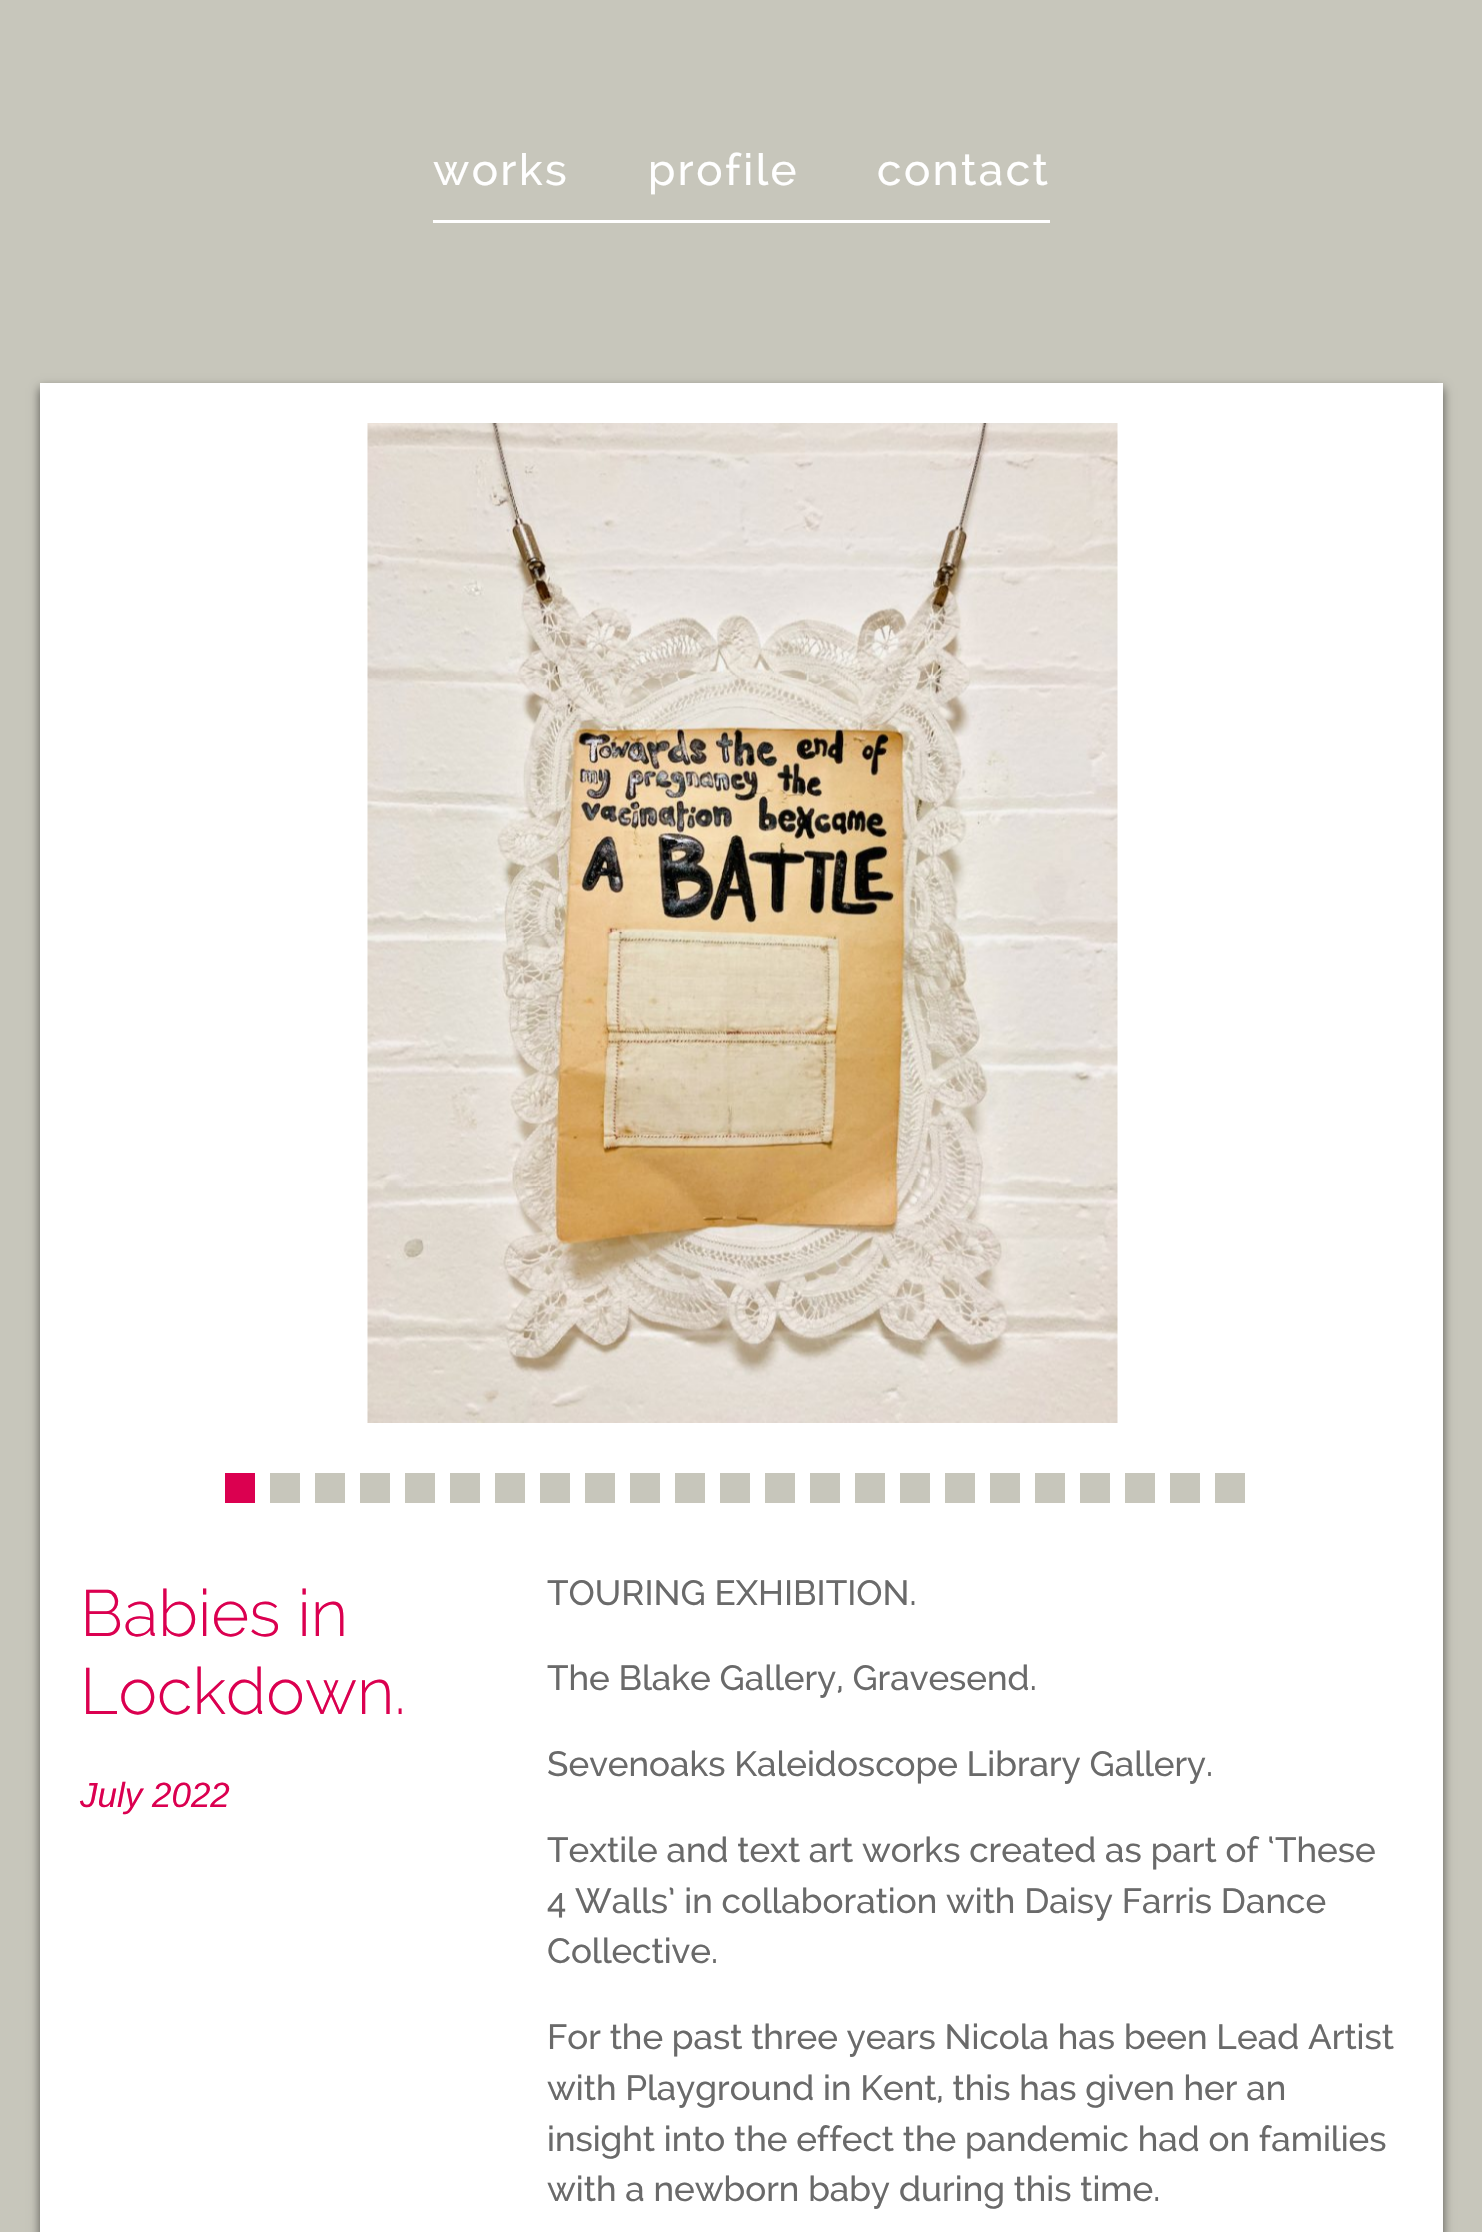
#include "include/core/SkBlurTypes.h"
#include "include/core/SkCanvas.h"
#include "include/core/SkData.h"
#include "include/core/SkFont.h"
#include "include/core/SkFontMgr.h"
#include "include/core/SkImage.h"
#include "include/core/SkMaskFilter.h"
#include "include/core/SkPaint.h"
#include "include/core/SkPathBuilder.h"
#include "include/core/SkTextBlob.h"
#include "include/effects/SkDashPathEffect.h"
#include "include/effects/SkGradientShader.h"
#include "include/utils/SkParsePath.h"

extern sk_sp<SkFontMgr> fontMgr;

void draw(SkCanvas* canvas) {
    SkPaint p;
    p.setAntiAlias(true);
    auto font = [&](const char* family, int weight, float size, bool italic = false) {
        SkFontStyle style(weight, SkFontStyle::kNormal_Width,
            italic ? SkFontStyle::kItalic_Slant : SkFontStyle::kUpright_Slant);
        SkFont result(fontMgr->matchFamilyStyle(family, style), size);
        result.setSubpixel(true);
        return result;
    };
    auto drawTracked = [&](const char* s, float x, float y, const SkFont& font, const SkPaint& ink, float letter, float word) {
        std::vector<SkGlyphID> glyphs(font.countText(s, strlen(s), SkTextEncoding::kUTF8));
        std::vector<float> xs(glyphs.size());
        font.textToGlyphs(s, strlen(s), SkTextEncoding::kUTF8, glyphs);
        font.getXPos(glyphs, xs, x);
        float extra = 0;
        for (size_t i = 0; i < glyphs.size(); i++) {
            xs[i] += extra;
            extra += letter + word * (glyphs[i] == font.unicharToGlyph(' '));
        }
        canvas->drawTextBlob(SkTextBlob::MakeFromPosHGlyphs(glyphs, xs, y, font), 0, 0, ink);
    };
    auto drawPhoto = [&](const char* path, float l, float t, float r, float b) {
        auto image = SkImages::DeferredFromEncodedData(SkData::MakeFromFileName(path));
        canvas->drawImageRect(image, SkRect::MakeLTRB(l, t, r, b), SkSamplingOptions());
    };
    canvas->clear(0xFFC7C6BB);
    p.setColor(0xFFFFFFFF);
    canvas->drawRect(SkRect::MakeLTRB(433, 220, 1050, 223), p);
    auto font1 = font("Raleway", 500, 44);
    {
        const struct { const char* s; float x, y; } items[] = {
            {"works", 433, 185},
            {"profile", 648, 185},
            {"contact", 877, 185},
        };
        for (auto [s, x, y] : items) {
            drawTracked(s, x, y, font1, p, 2.5f, 0);
        }
    }
    p.setColor(0x94000000);
    p.setMaskFilter(SkMaskFilter::MakeBlur(kNormal_SkBlurStyle, 5));
    canvas->drawRect(SkRect::MakeLTRB(40, 388, 1443, 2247), p);
    p.setMaskFilter(nullptr);
    p.setColor(0xFFFFFFFF);
    canvas->drawRect(SkRect::MakeLTRB(40, 383, 1443, 2232), p);
    drawPhoto("media/1.png", 367, 423, 1118, 1423);
    {
        const struct { float l, t, r, b; SkColor color; } items[] = {
            {225, 1473, 255, 1503, 0xFFDB0050},
            {270, 1473, 300, 1503, 0xFFC7C6BB},
            {315, 1473, 345, 1503, 0xFFC7C6BB},
            {360, 1473, 390, 1503, 0xFFC7C6BB},
            {405, 1473, 435, 1503, 0xFFC7C6BB},
            {450, 1473, 480, 1503, 0xFFC7C6BB},
            {495, 1473, 525, 1503, 0xFFC7C6BB},
            {540, 1473, 570, 1503, 0xFFC7C6BB},
            {585, 1473, 615, 1503, 0xFFC7C6BB},
            {630, 1473, 660, 1503, 0xFFC7C6BB},
            {675, 1473, 705, 1503, 0xFFC7C6BB},
            {720, 1473, 750, 1503, 0xFFC7C6BB},
            {765, 1473, 795, 1503, 0xFFC7C6BB},
            {810, 1473, 840, 1503, 0xFFC7C6BB},
            {855, 1473, 885, 1503, 0xFFC7C6BB},
            {900, 1473, 930, 1503, 0xFFC7C6BB},
            {945, 1473, 975, 1503, 0xFFC7C6BB},
            {990, 1473, 1020, 1503, 0xFFC7C6BB},
            {1035, 1473, 1065, 1503, 0xFFC7C6BB},
            {1080, 1473, 1110, 1503, 0xFFC7C6BB},
            {1125, 1473, 1155, 1503, 0xFFC7C6BB},
            {1170, 1473, 1200, 1503, 0xFFC7C6BB},
            {1215, 1473, 1245, 1503, 0xFFC7C6BB},
        };
        for (auto [l, t, r, b, color] : items) {
            p.setColor(color);
            canvas->drawRect(SkRect::MakeLTRB(l, t, r, b), p);
        }
    }
    auto font2 = font("Raleway", 300, 65);
    p.setColor(0xFFDB0050);
    canvas->drawString("Babies in", 80, 1636, font2, p);
    canvas->drawString("Lockdown.", 80, 1714, font2, p);
    auto font3 = font("Liberation Sans", 400, 35, true);
    canvas->drawString("July 2022", 80, 1807, font3, p);
    auto font4 = font("Raleway", 500, 35);
    p.setColor(0xFF6A6A6A);
    {
        const struct { const char* s; float x, y; } items[] = {
            {"TOURING EXHIBITION.", 547, 1605},
            {"The Blake Gallery, Gravesend.", 547, 1690},
            {"Sevenoaks Kaleidoscope Library Gallery.", 547, 1776},
            {"Textile and text art works created as part of ‘These", 547, 1862},
            {"4 Walls’ in collaboration with Daisy Farris Dance", 547, 1913},
            {"Collective.", 547, 1963},
            {"For the past three years Nicola has been Lead Artist", 547, 2049},
            {"with Playground in Kent, this has given her an", 547, 2100},
            {"insight into the effect the pandemic had on families", 547, 2151},
            {"with a newborn baby during this time.", 547, 2201},
        };
        for (auto [s, x, y] : items) {
            canvas->drawString(s, x, y, font4, p);
        }
    }
}
